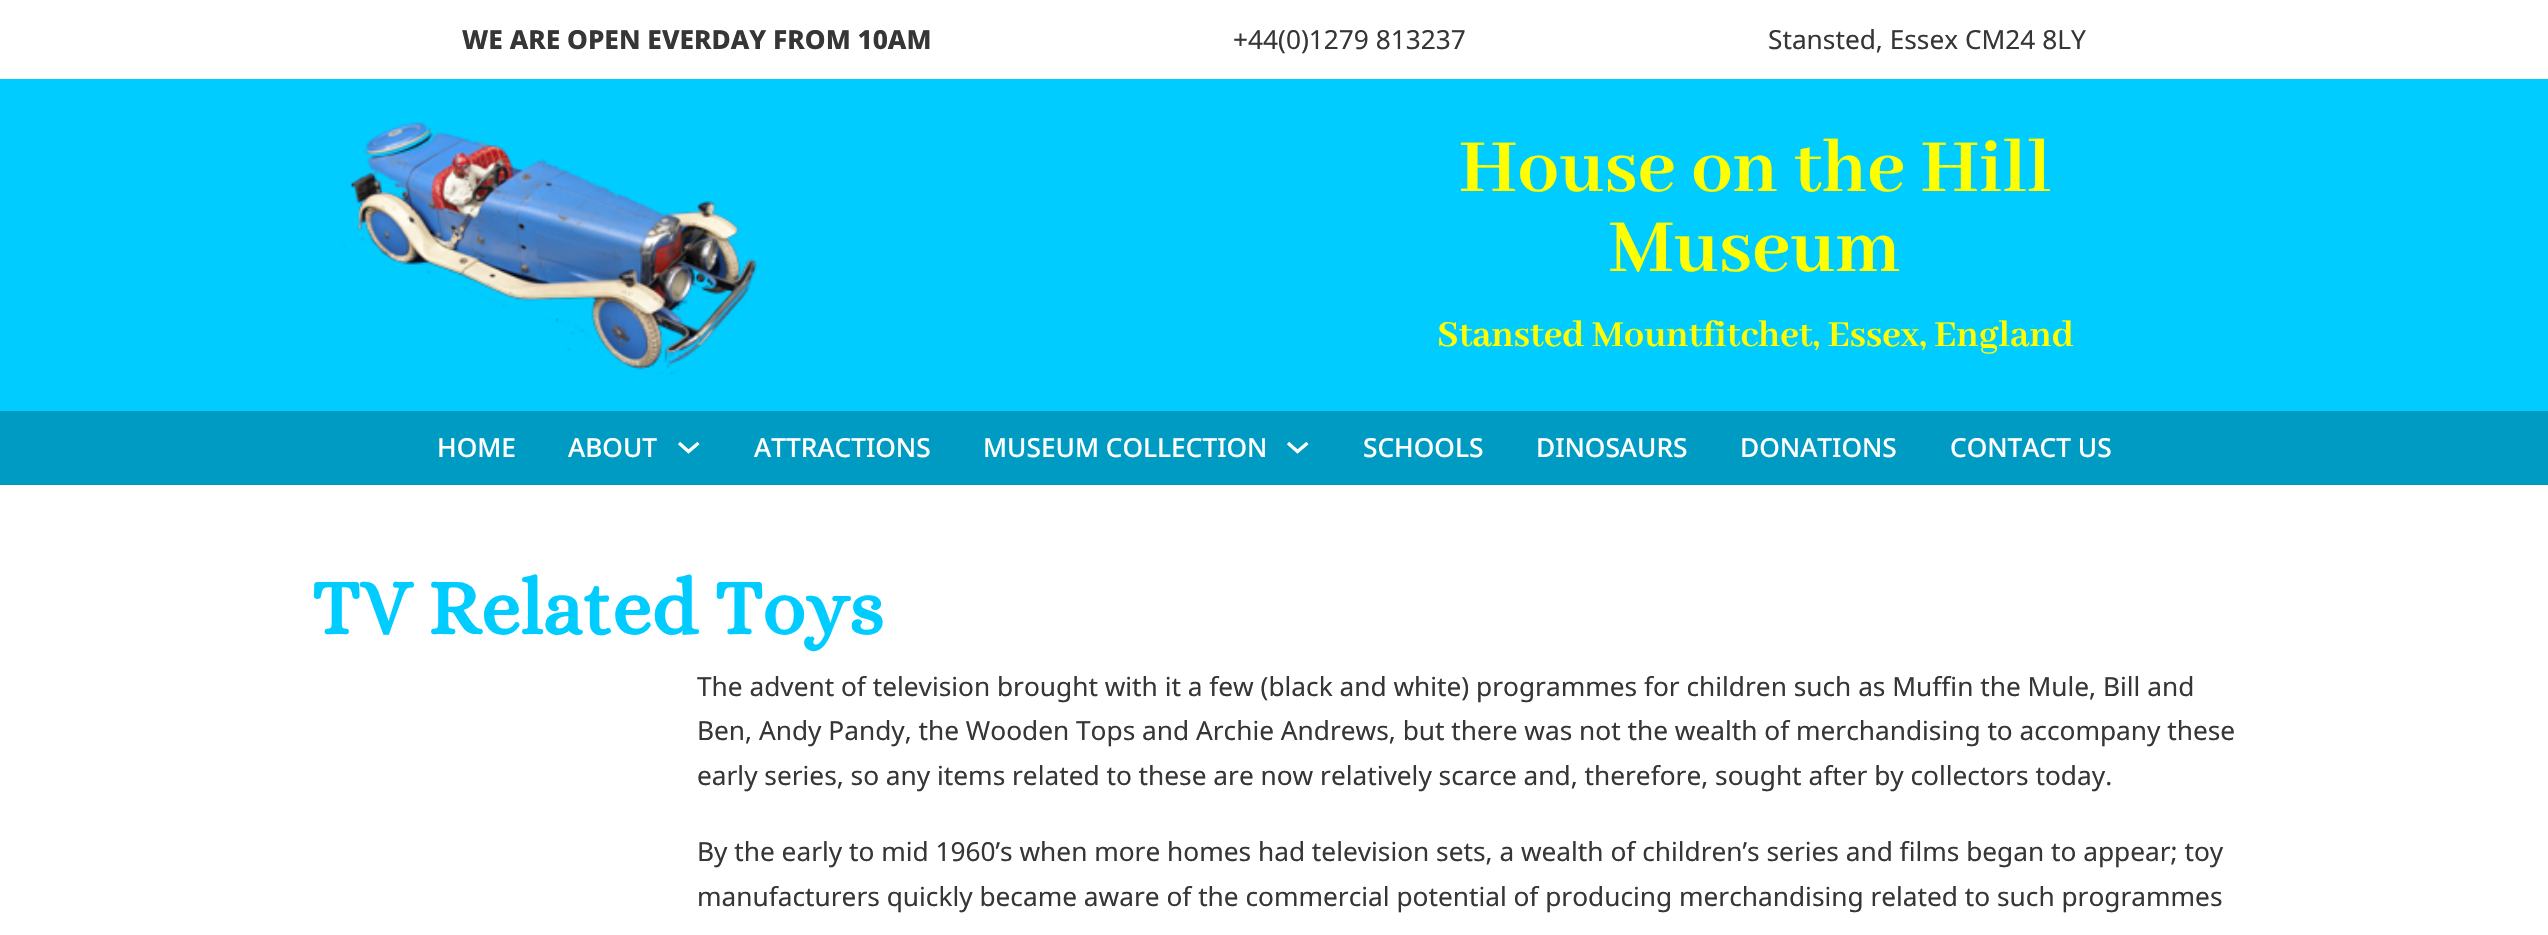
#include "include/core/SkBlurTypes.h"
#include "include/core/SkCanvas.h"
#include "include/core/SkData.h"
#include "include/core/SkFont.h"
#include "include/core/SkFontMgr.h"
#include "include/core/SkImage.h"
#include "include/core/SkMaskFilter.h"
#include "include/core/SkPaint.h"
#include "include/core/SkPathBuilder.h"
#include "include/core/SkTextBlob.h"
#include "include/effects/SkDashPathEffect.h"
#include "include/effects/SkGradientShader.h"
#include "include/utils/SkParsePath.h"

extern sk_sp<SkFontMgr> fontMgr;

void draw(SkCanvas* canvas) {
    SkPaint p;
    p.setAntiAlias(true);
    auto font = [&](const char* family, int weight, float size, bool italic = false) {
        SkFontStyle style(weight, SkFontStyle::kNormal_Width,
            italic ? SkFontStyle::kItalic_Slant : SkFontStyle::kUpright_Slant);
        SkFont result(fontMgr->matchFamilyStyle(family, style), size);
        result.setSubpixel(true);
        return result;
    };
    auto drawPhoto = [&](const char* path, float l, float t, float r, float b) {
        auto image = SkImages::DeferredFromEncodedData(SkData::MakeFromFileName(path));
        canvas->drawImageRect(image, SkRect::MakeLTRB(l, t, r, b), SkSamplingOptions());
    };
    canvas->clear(0xFFFFFFFF);
    auto font1 = font("Noto Sans", 800, 26.25f);
    p.setColor(0xFF363636);
    canvas->drawString("WE ARE OPEN EVERDAY FROM 10AM", 462, 49, font1, p);
    auto font2 = font("Noto Sans", 400, 26.25f);
    canvas->drawString("+44(0)1279 813237", 1233, 49, font2, p);
    canvas->drawString("Stansted, Essex CM24 8LY", 1768, 49, font2, p);
    p.setColor(0xFF00CCFF);
    canvas->drawRect(SkRect::MakeLTRB(0, 79, 2548, 411), p);
    drawPhoto("media/1.png", 343, 122, 757, 376);
    auto font3 = font("Abhaya Libre", 700, 82.25f);
    p.setColor(0xFFFFFF00);
    canvas->drawString("House on the Hill", 1459, 191, font3, p);
    canvas->drawString("Museum", 1609, 271, font3, p);
    auto font4 = font("Abhaya Libre", 700, 40.25f);
    canvas->drawString("Stansted Mountfitchet, Essex, England", 1437, 346, font4, p);
    p.setColor(0xFF009BC2);
    canvas->drawRect(SkRect::MakeLTRB(0, 411, 2548, 485), p);
    auto font5 = font("Noto Sans", 500, 26.25f);
    p.setColor(0xFFFFFFFF);
    canvas->drawString("HOME", 437, 457, font5, p);
    canvas->drawString("ABOUT", 568, 457, font5, p);
    p.setStyle(SkPaint::kStroke_Style);
    p.setStrokeWidth(3.3f);
    canvas->drawPath(SkPathBuilder().moveTo(679, 443).lineTo(688.5f, 451.5f).lineTo(698.5f, 443).detach(), p);
    p.setStyle(SkPaint::kFill_Style);
    canvas->drawString("ATTRACTIONS", 754, 457, font5, p);
    canvas->drawString("MUSEUM COLLECTION", 983, 457, font5, p);
    p.setStyle(SkPaint::kStroke_Style);
    canvas->drawPath(SkPathBuilder().moveTo(1288, 443).lineTo(1297.5f, 451.5f).lineTo(1307.5f, 443).detach(), p);
    p.setStyle(SkPaint::kFill_Style);
    {
        const struct { const char* s; float x, y; } items[] = {
            {"SCHOOLS", 1363, 457},
            {"DINOSAURS", 1536, 457},
            {"DONATIONS", 1740, 457},
            {"CONTACT US", 1950, 457},
        };
        for (auto [s, x, y] : items) {
            canvas->drawString(s, x, y, font5, p);
        }
    }
    auto font6 = font("Alice", 700, 78.75f);
    p.setColor(0xFF00CCFF);
    canvas->drawString("TV Related Toys", 312, 634, font6, p);
    p.setColor(0xFF363636);
    {
        const struct { const char* s; float x, y; } items[] = {
            {"The advent of television brought with it a few (black and white) programmes for children such as Muffin the Mule, Bill and", 697, 696},
            {"Ben, Andy Pandy, the Wooden Tops and Archie Andrews, but there was not the wealth of merchandising to accompany these", 697, 740},
            {"early series, so any items related to these are now relatively scarce and, therefore, sought after by collectors today.", 697, 785},
            {"By the early to mid 1960’s when more homes had television sets, a wealth of children’s series and films began to appear; toy", 697, 861},
            {"manufacturers quickly became aware of the commercial potential of producing merchandising related to such programmes", 697, 906},
        };
        for (auto [s, x, y] : items) {
            canvas->drawString(s, x, y, font2, p);
        }
    }
}
